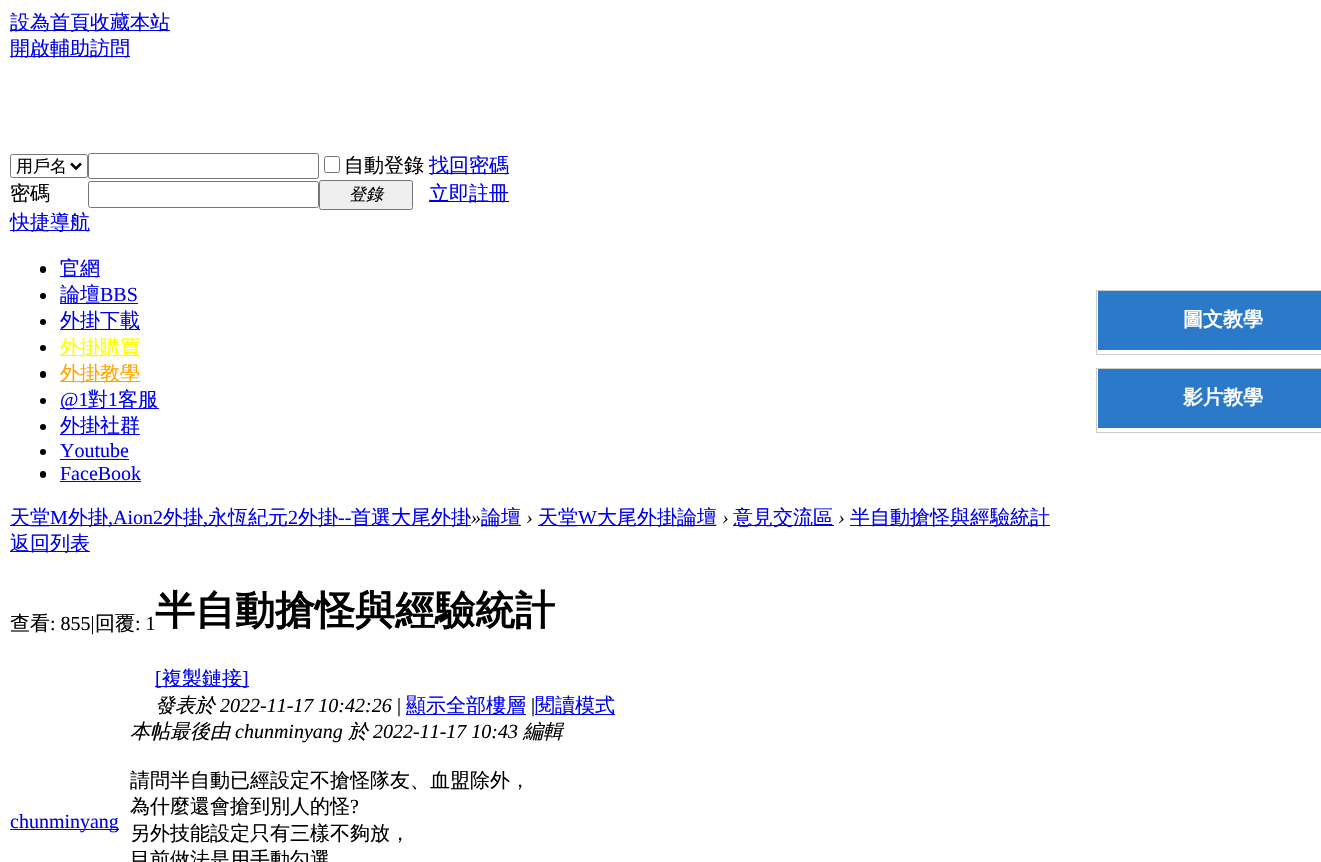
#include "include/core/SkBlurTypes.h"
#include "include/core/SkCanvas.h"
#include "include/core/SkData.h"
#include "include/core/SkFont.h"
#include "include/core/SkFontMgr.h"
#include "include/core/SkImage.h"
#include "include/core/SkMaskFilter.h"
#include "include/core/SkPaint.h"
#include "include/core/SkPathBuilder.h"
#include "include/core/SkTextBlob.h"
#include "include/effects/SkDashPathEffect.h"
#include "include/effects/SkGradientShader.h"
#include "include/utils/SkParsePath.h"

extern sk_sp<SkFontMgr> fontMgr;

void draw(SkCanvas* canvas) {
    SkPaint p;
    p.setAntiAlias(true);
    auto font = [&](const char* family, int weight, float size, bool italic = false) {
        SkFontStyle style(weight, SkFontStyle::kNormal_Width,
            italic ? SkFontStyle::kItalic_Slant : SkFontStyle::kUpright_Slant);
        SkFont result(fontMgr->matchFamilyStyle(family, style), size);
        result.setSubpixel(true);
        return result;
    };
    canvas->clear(0xFFFFFFFF);
    p.setColor(0xFF0000EE);
    canvas->drawRect(SkRect::MakeLTRB(10, 30, 170, 31), p);
    auto font1 = font("WenQuanYi Zen Hei", 500, 20);
    canvas->drawString("設為首頁收藏本站", 10, 29, font1, p);
    canvas->drawRect(SkRect::MakeLTRB(10, 56, 130, 57), p);
    canvas->drawString("開啟輔助訪問", 10, 55, font1, p);
    p.setStyle(SkPaint::kStroke_Style);
    p.setStrokeWidth(1);
    p.setColor(0xFF767676);
    canvas->drawRoundRect(SkRect::MakeLTRB(10.5f, 154.5f, 87.5f, 177.5f), 2, 2, p);
    p.setStrokeWidth(2.5f);
    p.setColor(0xFF000000);
    canvas->drawPath(SkPathBuilder().moveTo(71, 163.5f).lineTo(76, 168.5f).lineTo(81, 163.5f).detach(), p);
    auto font2 = font("WenQuanYi Zen Hei", 500, 17);
    p.setStyle(SkPaint::kFill_Style);
    canvas->drawString("用戶名", 16, 172, font2, p);
    p.setStyle(SkPaint::kStroke_Style);
    p.setStrokeWidth(1);
    p.setColor(0xFF767676);
    canvas->drawRoundRect(SkRect::MakeLTRB(88.5f, 153.5f, 318.5f, 178.5f), 2, 2, p);
    canvas->drawRoundRect(SkRect::MakeLTRB(324.5f, 156.5f, 339.5f, 172.5f), 2, 2, p);
    p.setStyle(SkPaint::kFill_Style);
    p.setColor(0xFF000000);
    canvas->drawString("自動登錄", 344, 172, font1, p);
    p.setColor(0xFF0000EE);
    canvas->drawRect(SkRect::MakeLTRB(429, 173, 509, 174), p);
    canvas->drawString("找回密碼", 429, 172, font1, p);
    p.setColor(0xFF000000);
    canvas->drawString("密碼", 10, 200, font1, p);
    p.setStyle(SkPaint::kStroke_Style);
    p.setColor(0xFF767676);
    canvas->drawRoundRect(SkRect::MakeLTRB(88.5f, 181.5f, 318.5f, 207.5f), 2, 2, p);
    p.setStyle(SkPaint::kFill_Style);
    p.setColor(0xFFEFEFEF);
    canvas->drawRoundRect(SkRect::MakeLTRB(319.5f, 180.5f, 412.5f, 209.5f), 2, 2, p);
    p.setStyle(SkPaint::kStroke_Style);
    p.setColor(0xFF767676);
    canvas->drawRoundRect(SkRect::MakeLTRB(319.5f, 180.5f, 412.5f, 209.5f), 2, 2, p);
    auto font3 = font("WenQuanYi Zen Hei", 500, 17, true);
    p.setStyle(SkPaint::kFill_Style);
    p.setColor(0xFF000000);
    canvas->drawString("登錄", 349, 200, font3, p);
    p.setColor(0xFF0000EE);
    canvas->drawRect(SkRect::MakeLTRB(429, 201, 509, 202), p);
    canvas->drawString("立即註冊", 429, 200, font1, p);
    canvas->drawRect(SkRect::MakeLTRB(10, 230, 90, 231), p);
    canvas->drawString("快捷導航", 10, 229, font1, p);
    p.setColor(0xFF000000);
    canvas->drawRoundRect(SkRect::MakeLTRB(40, 266, 46, 273), 3, 3, p);
    p.setColor(0xFF0000EE);
    canvas->drawRect(SkRect::MakeLTRB(60, 276, 100, 277), p);
    canvas->drawString("官網", 60, 275, font1, p);
    p.setColor(0xFF000000);
    canvas->drawCircle(43, 296, 3, p);
    p.setColor(0xFF0000EE);
    canvas->drawRect(SkRect::MakeLTRB(60, 303, 138, 304), p);
    canvas->drawString("論壇", 60, 301, font1, p);
    auto font4 = font("Liberation Serif", 400, 20);
    canvas->drawString("BBS", 100, 301, font4, p);
    p.setColor(0xFF000000);
    canvas->drawCircle(43, 322, 3, p);
    p.setColor(0xFF0000EE);
    canvas->drawRect(SkRect::MakeLTRB(60, 329, 140, 330), p);
    canvas->drawString("外掛下載", 60, 327, font1, p);
    p.setColor(0xFF000000);
    canvas->drawCircle(43, 348, 3, p);
    p.setColor(0xFFFFFF00);
    canvas->drawRect(SkRect::MakeLTRB(60, 355, 140, 356), p);
    canvas->drawString("外掛購買", 60, 354, font1, p);
    p.setColor(0xFF000000);
    canvas->drawRoundRect(SkRect::MakeLTRB(40, 371, 46, 378), 3, 3, p);
    p.setColor(0xFFFFA500);
    canvas->drawRect(SkRect::MakeLTRB(60, 381, 140, 382), p);
    canvas->drawString("外掛教學", 60, 380, font1, p);
    p.setColor(0xFF000000);
    canvas->drawCircle(43, 401, 3, p);
    p.setColor(0xFF0000EE);
    canvas->drawRect(SkRect::MakeLTRB(60, 408, 159, 409), p);
    canvas->drawString("@1", 60, 406, font4, p);
    canvas->drawString("對", 88, 406, font1, p);
    canvas->drawString("1", 108, 406, font4, p);
    canvas->drawString("客服", 118, 406, font1, p);
    p.setColor(0xFF000000);
    canvas->drawCircle(43, 427, 3, p);
    p.setColor(0xFF0000EE);
    canvas->drawRect(SkRect::MakeLTRB(60, 434, 140, 435), p);
    canvas->drawString("外掛社群", 60, 432, font1, p);
    p.setColor(0xFF000000);
    canvas->drawCircle(43, 452, 3, p);
    p.setColor(0xFF0000EE);
    canvas->drawString("Youtube", 60, 457, font4, p);
    canvas->drawRect(SkRect::MakeLTRB(60, 459, 129, 460), p);
    p.setColor(0xFF000000);
    canvas->drawRoundRect(SkRect::MakeLTRB(40, 471, 46, 478), 3, 3, p);
    p.setColor(0xFF0000EE);
    canvas->drawString("FaceBook", 60, 480, font4, p);
    canvas->drawRect(SkRect::MakeLTRB(60, 481, 141, 482), p);
    p.setStyle(SkPaint::kStroke_Style);
    p.setColor(0xFFCDCDCD);
    canvas->drawRect(SkRect::MakeLTRB(1096.5f, 290.5f, 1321.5f, 354.5f), p);
    p.setStyle(SkPaint::kFill_Style);
    p.setColor(0xFF2B7ACA);
    canvas->drawRect(SkRect::MakeLTRB(1098, 291, 1321, 350), p);
    auto font5 = font("WenQuanYi Zen Hei", 700, 20);
    p.setColor(0xFFFFFFFF);
    canvas->drawString("圖文教學", 1183, 326, font5, p);
    p.setStyle(SkPaint::kStroke_Style);
    p.setColor(0xFFCDCDCD);
    canvas->drawRect(SkRect::MakeLTRB(1096.5f, 368.5f, 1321.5f, 432.5f), p);
    p.setStyle(SkPaint::kFill_Style);
    p.setColor(0xFF2B7ACA);
    canvas->drawRect(SkRect::MakeLTRB(1098, 369, 1321, 428), p);
    p.setColor(0xFFFFFFFF);
    canvas->drawString("影片教學", 1183, 404, font5, p);
    p.setColor(0xFF0000EE);
    canvas->drawRect(SkRect::MakeLTRB(10, 525, 471, 526), p);
    canvas->drawString("天堂", 10, 524, font1, p);
    canvas->drawString("M", 50, 524, font4, p);
    canvas->drawString("外掛", 68, 524, font1, p);
    canvas->drawString(",Aion2", 108, 524, font4, p);
    canvas->drawString("外掛", 163, 524, font1, p);
    canvas->drawString("永恆紀元", 208, 524, font1, p);
    canvas->drawString("2", 288, 524, font4, p);
    canvas->drawString("外掛", 298, 524, font1, p);
    canvas->drawString("--", 338, 524, font4, p);
    canvas->drawString("首選大尾外掛", 351, 524, font1, p);
    auto font6 = font("Liberation Serif", 400, 20, true);
    p.setColor(0xFF000000);
    canvas->drawString("»", 471, 524, font6, p);
    p.setColor(0xFF0000EE);
    canvas->drawRect(SkRect::MakeLTRB(481, 525, 521, 526), p);
    canvas->drawString("論壇", 481, 524, font1, p);
    p.setColor(0xFF000000);
    canvas->drawString("›", 526, 524, font6, p);
    p.setColor(0xFF0000EE);
    canvas->drawRect(SkRect::MakeLTRB(538, 525, 716, 526), p);
    canvas->drawString("天堂", 538, 524, font1, p);
    canvas->drawString("W", 578, 524, font4, p);
    canvas->drawString("大尾外掛論壇", 597, 524, font1, p);
    p.setColor(0xFF000000);
    canvas->drawString("›", 722, 524, font6, p);
    p.setColor(0xFF0000EE);
    canvas->drawRect(SkRect::MakeLTRB(734, 525, 834, 526), p);
    canvas->drawString("意見交流區", 733, 524, font1, p);
    p.setColor(0xFF000000);
    canvas->drawString("›", 838, 524, font6, p);
    p.setColor(0xFF0000EE);
    canvas->drawRect(SkRect::MakeLTRB(850, 525, 1050, 526), p);
    canvas->drawString("半自動搶怪與經驗統計", 850, 524, font1, p);
    canvas->drawString(",", 203, 524, font4, p);
    canvas->drawRect(SkRect::MakeLTRB(10, 551, 90, 552), p);
    canvas->drawString("返回列表", 10, 550, font1, p);
    p.setColor(0xFF000000);
    canvas->drawString("查看", 10, 630, font1, p);
    canvas->drawString(": 855|", 50, 630, font4, p);
    canvas->drawString("回覆", 95, 630, font1, p);
    canvas->drawString(": 1", 135, 630, font4, p);
    auto font7 = font("WenQuanYi Zen Hei", 700, 40);
    canvas->drawString("半自動搶怪與經驗統計", 155, 624, font7, p);
    p.setColor(0xFF0000EE);
    canvas->drawRect(SkRect::MakeLTRB(155, 686, 249, 687), p);
    canvas->drawString("[", 155, 685, font4, p);
    canvas->drawString("複製鏈接", 162, 685, font1, p);
    canvas->drawString("]", 242, 685, font4, p);
    canvas->drawRect(SkRect::MakeLTRB(10, 829, 119, 830), p);
    canvas->drawString("chunminyang", 10, 828, font4, p);
    auto font8 = font("WenQuanYi Zen Hei", 500, 20, true);
    p.setColor(0xFF000000);
    canvas->drawString("發表於", 155, 712, font8, p);
    canvas->drawString("2022-11-17 10:42:26", 220, 712, font6, p);
    canvas->drawString("|", 397, 712, font4, p);
    p.setColor(0xFF0000EE);
    canvas->drawRect(SkRect::MakeLTRB(406, 714, 526, 715), p);
    canvas->drawString("顯示全部樓層", 406, 712, font1, p);
    p.setColor(0xFF000000);
    canvas->drawString("|", 531, 712, font4, p);
    p.setColor(0xFF0000EE);
    canvas->drawRect(SkRect::MakeLTRB(535, 714, 615, 715), p);
    canvas->drawString("閱讀模式", 535, 712, font1, p);
    p.setColor(0xFF000000);
    canvas->drawString("本帖最後由", 130, 738, font8, p);
    canvas->drawString("chunminyang", 235, 738, font6, p);
    canvas->drawString("於", 348, 738, font8, p);
    canvas->drawString("2022-11-17 10:43", 373, 738, font6, p);
    canvas->drawString("編輯", 523, 738, font8, p);
    canvas->drawString("請問半自動已經設定不搶怪隊友、血盟除外，", 130, 787, font1, p);
    canvas->drawString("為什麼還會搶到別人的怪", 130, 813, font1, p);
    canvas->drawString("?", 350, 813, font4, p);
    canvas->drawString("另外技能設定只有三樣不夠放，", 130, 840, font1, p);
    canvas->drawString("目前做法是用手動勾選", 130, 866, font1, p);
}
